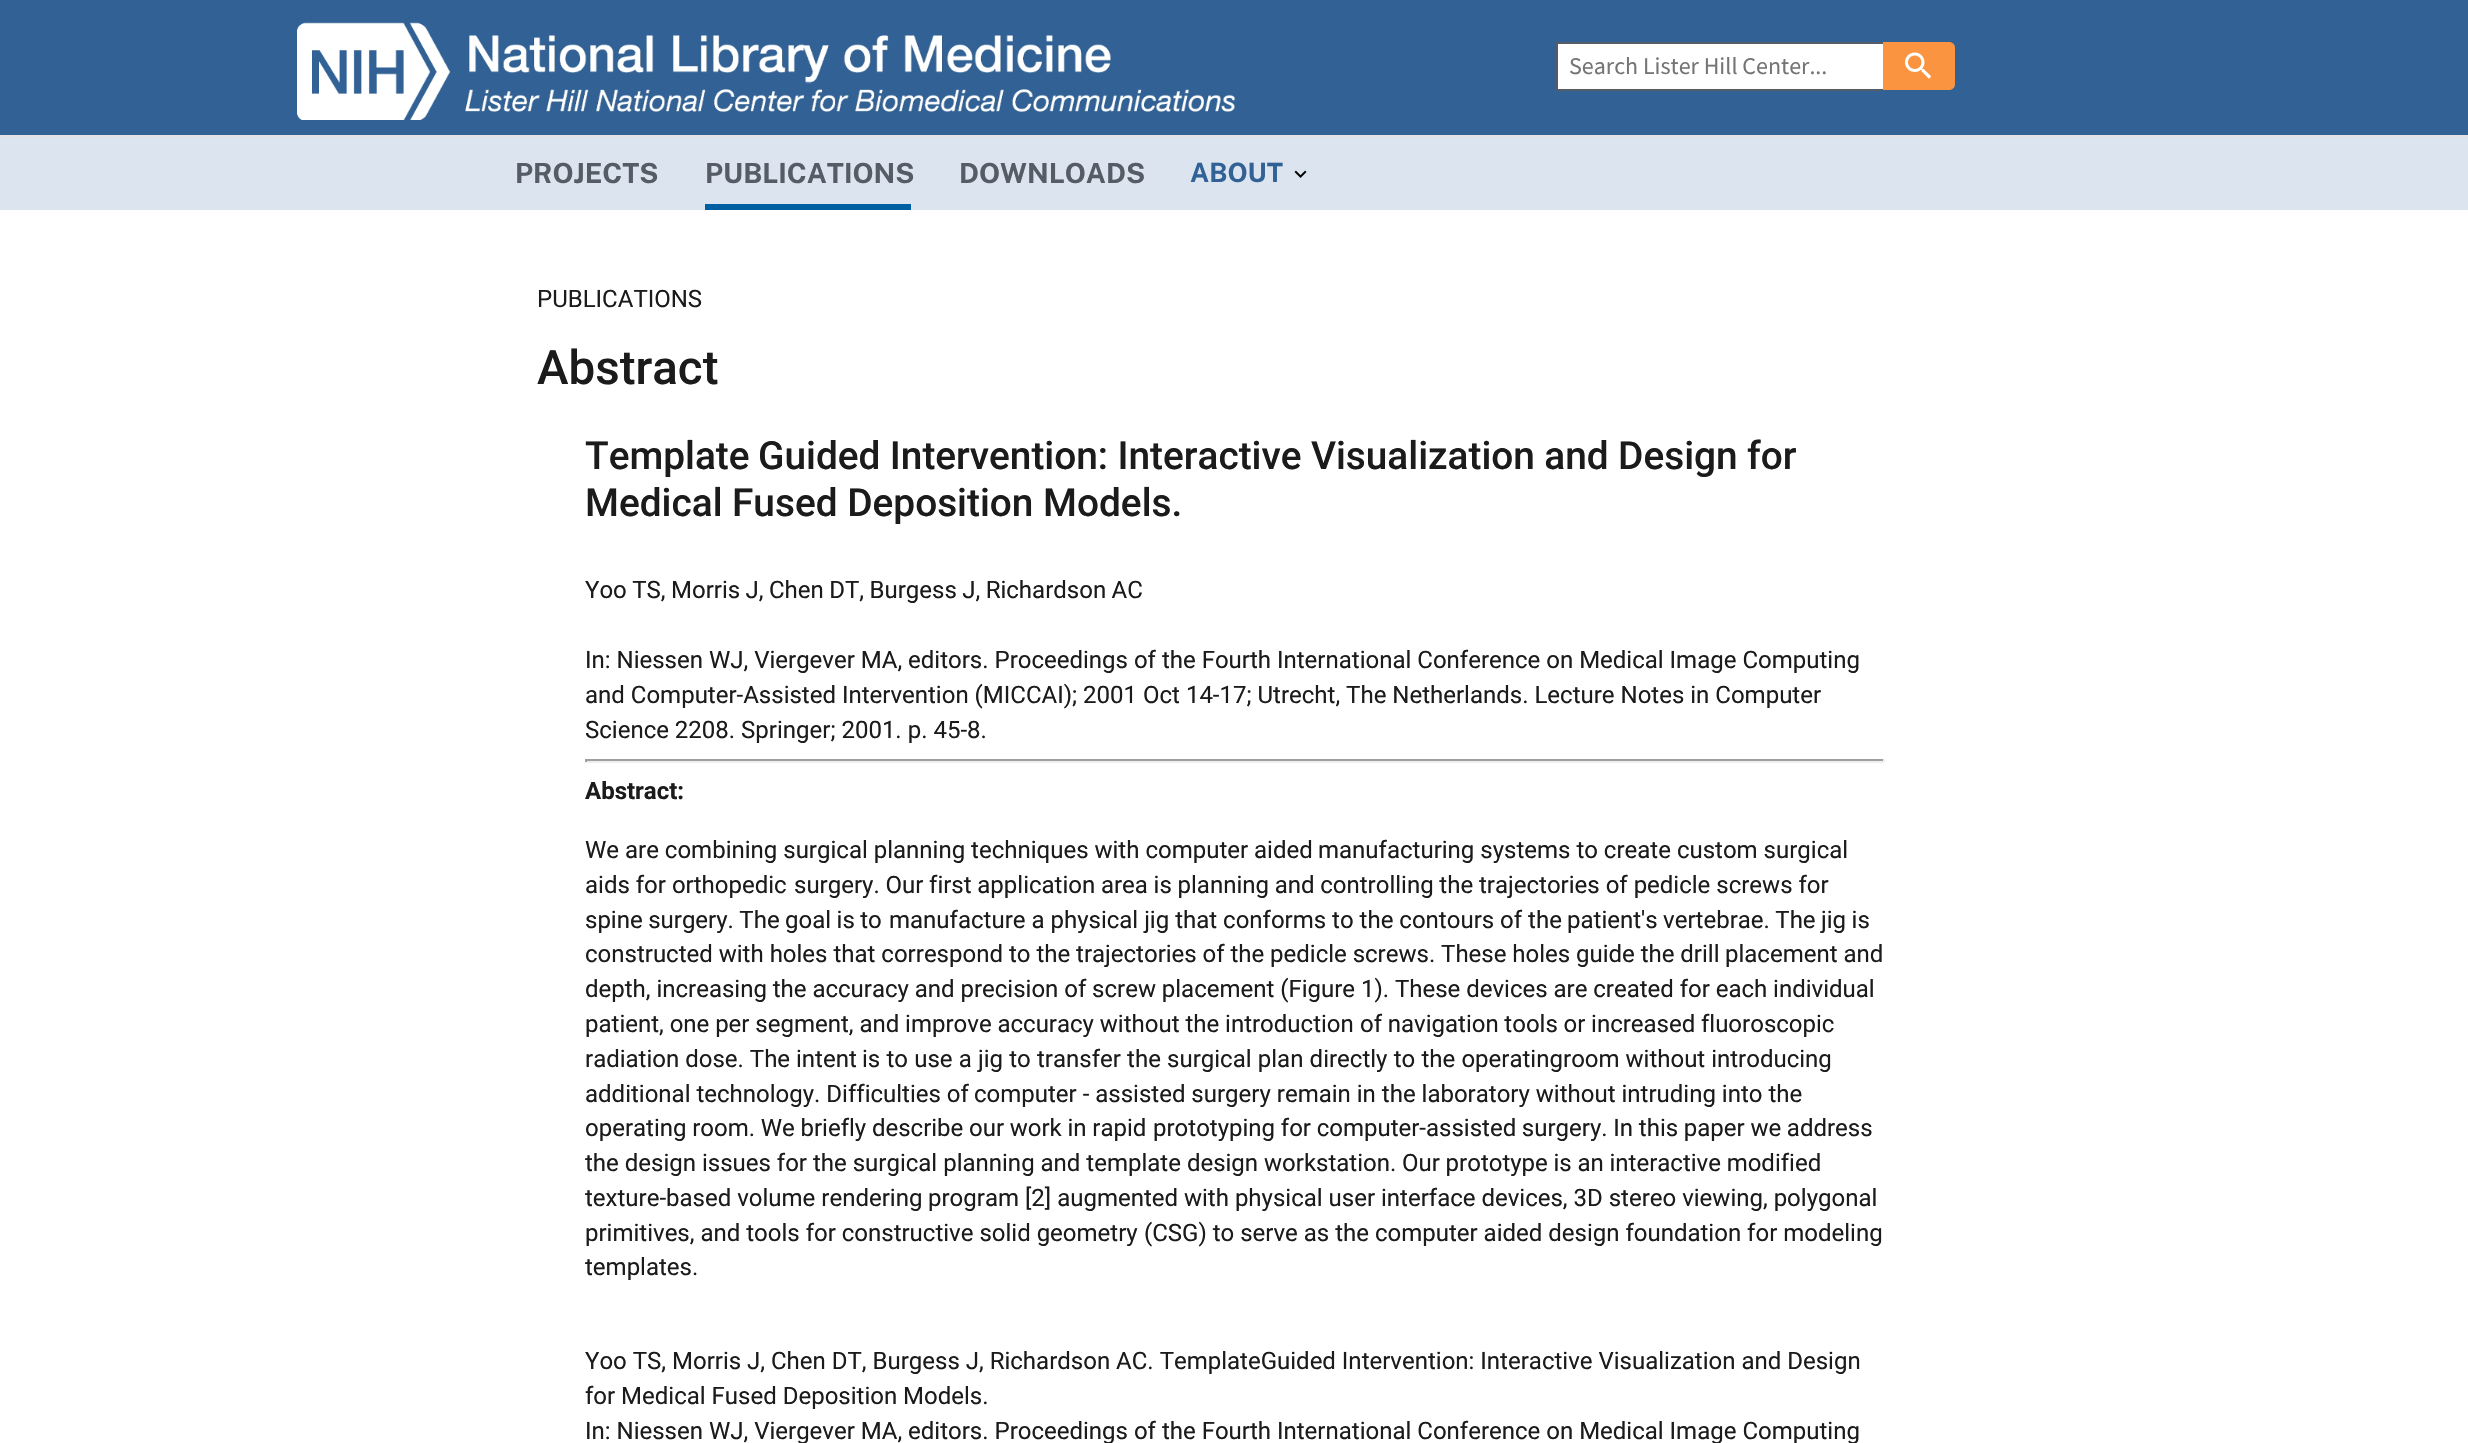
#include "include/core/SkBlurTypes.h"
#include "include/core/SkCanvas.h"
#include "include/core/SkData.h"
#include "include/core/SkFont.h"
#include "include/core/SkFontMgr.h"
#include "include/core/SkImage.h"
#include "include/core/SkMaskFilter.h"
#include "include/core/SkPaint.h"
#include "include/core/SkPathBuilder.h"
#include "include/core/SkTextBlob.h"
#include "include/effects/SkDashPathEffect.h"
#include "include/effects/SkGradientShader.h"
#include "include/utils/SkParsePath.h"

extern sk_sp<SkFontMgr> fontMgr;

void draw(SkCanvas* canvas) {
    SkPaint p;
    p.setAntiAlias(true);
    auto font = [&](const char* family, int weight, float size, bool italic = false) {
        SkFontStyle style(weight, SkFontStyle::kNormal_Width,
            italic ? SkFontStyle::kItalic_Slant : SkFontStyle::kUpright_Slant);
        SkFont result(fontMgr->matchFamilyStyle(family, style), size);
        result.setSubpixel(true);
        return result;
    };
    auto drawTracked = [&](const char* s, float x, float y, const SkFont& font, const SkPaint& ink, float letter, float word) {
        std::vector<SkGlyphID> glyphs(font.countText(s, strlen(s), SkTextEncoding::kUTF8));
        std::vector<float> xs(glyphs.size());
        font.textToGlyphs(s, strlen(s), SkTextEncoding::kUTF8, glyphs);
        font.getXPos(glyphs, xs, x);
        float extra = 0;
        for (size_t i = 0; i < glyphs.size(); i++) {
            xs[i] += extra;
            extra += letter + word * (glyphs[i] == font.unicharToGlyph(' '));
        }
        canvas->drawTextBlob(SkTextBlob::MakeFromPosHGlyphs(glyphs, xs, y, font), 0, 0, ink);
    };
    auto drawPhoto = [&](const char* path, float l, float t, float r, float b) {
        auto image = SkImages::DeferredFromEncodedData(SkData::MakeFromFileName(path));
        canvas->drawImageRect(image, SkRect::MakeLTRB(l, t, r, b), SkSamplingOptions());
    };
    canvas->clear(0xFFFFFFFF);
    p.setColor(0xFF326295);
    canvas->drawRect(SkRect::MakeLTRB(0, 0, 2468, 135), p);
    drawPhoto("media/1.png", 297, 22, 451, 120);
    drawPhoto("media/2.png", 468, 35, 1111, 83);
    drawPhoto("media/3.png", 464, 82, 1235, 112);
    {
        const struct { float l, t, r, b; SkColor color; } items[] = {
            {0, 137, 2468, 210, 0xFFDCE4EF},
            {0, 135, 2468, 137, 0xFFDFE1E2},
            {1558, 44, 1883, 89, 0xFFFFFFFF},
            {1556, 42, 1883, 44, 0xFF565C65},
            {1556, 89, 1883, 91, 0xFF565C65},
            {1556, 42, 1558, 90, 0xFF565C65},
        };
        for (auto [l, t, r, b, color] : items) {
            p.setColor(color);
            canvas->drawRect(SkRect::MakeLTRB(l, t, r, b), p);
        }
    }
    auto font1 = font("Source Sans Pro", 400, 24);
    p.setColor(0xFF757575);
    canvas->drawString("Search Lister Hill Center...", 1569, 74, font1, p);
    p.setColor(0xFFFA9441);
    canvas->drawPath(SkPathBuilder().moveTo(1883, 42).lineTo(1949, 42).cubicTo(1952.5f, 42, 1955, 44.5f, 1955, 48).lineTo(1955, 84).cubicTo(1955, 87.5f, 1952.5f, 90, 1949, 90).lineTo(1883, 90).close().detach(), p);
    drawPhoto("media/4.png", 1905, 52, 1932, 79);
    auto font2 = font("Public Sans", 700, 27.75f);
    p.setColor(0xFF565C65);
    canvas->drawString("PROJECTS", 515, 183, font2, p);
    canvas->drawString("PUBLICATIONS", 705, 183, font2, p);
    p.setColor(0xFF005EA2);
    canvas->drawRect(SkRect::MakeLTRB(705, 204, 911, 210), p);
    p.setColor(0xFF565C65);
    canvas->drawString("DOWNLOADS", 959, 183, font2, p);
    drawPhoto("media/5.png", 1294, 170, 1307, 178);
    auto font3 = font("Public Sans", 700, 26.5f);
    p.setColor(0xFF326295);
    canvas->drawString("ABOUT", 1190, 182, font3, p);
    auto font4 = font("Roboto", 400, 24);
    p.setColor(0xFF1B1B1B);
    canvas->drawString("PUBLICATIONS", 537, 307, font4, p);
    auto font5 = font("Roboto", 500, 47.5f);
    canvas->drawString("Abstract", 537, 384, font5, p);
    auto font6 = font("Roboto", 500, 38.8f);
    canvas->drawString("Template", 585, 469, font6, p);
    drawTracked("Guided Intervention: Interactive Visualization and Design for", 758, 469, font6, p, 0, -0.25f);
    canvas->drawString("Medical", 585, 516, font6, p);
    canvas->drawString("Fused Deposition Models.", 732, 516, font6, p);
    drawTracked("Yoo TS, Morris J, Chen DT, Burgess J, Richardson AC", 585, 598, font4, p, 0, -0.5f);
    {
        const struct { const char* s; float x, y; } items[] = {
            {"In: Niessen WJ, Viergever MA, editors. Proceedings of the Fourth International Conference on Medical Image Computing", 585, 668},
            {"and Computer-Assisted Intervention (MICCAI); 2001 Oct 14-17; Utrecht, The Netherlands. Lecture Notes in Computer", 585, 703},
            {"Science 2208. Springer; 2001. p. 45-8.", 585, 738},
        };
        for (auto [s, x, y] : items) {
            canvas->drawString(s, x, y, font4, p);
        }
    }
    {
        const struct { float l, t, r, b; SkColor color; } items[] = {
            {585, 759, 1884, 761, 0xFF9F9F9F},
            {1883, 759, 1885, 762, 0xFFEEEEEE},
            {585, 761, 1884, 763, 0xFFEEEEEE},
            {585, 759, 587, 762, 0xFF9F9F9F},
        };
        for (auto [l, t, r, b, color] : items) {
            p.setColor(color);
            canvas->drawRect(SkRect::MakeLTRB(l, t, r, b), p);
        }
    }
    auto font7 = font("Roboto", 700, 24);
    p.setColor(0xFF1B1B1B);
    canvas->drawString("Abstract:", 585, 799, font7, p);
    {
        const struct { const char* s; float x, y; } items[] = {
            {"We", 585, 858},
            {"are combining surgical planning techniques with computer aided", 625, 858},
            {"manufacturing systems to create custom surgical", 1318, 858},
            {"aids for orthopedic", 585, 893},
        };
        for (auto [s, x, y] : items) {
            canvas->drawString(s, x, y, font4, p);
        }
    }
    drawTracked("surgery. Our first application area is planning and controlling the", 794, 893, font4, p, 0, -0.25f);
    canvas->drawString("trajectories of pedicle screws for", 1479, 893, font4, p);
    drawTracked("spine surgery. The goal is to", 585, 928, font4, p, 0, -0.5f);
    canvas->drawString("manufacture a physical jig that conforms to the contours of the", 889, 928, font4, p);
    drawTracked("patient's vertebrae. The jig is", 1567, 928, font4, p, 0, -0.5f);
    canvas->drawString("constructed with holes that correspond", 585, 962, font4, p);
    drawTracked("to the trajectories of the pedicle screws. These holes guide the drill", 1009, 962, font4, p, 0, -0.1f);
    canvas->drawString("placement and", 1725, 962, font4, p);
    drawTracked("depth, increasing the accuracy and precision of screw placement (Figure 1). These devices are created for each individual", 585, 997, font4, p, 0, -0.1f);
    drawTracked("patient, one per segment, and improve accuracy without the introduction", 585, 1032, font4, p, 0, -0.1f);
    drawTracked("of navigation tools or increased fluoroscopic", 1360, 1032, font4, p, 0, -0.25f);
    canvas->drawString("radiation dose. The intent", 585, 1067, font4, p);
    drawTracked("is to use a jig to transfer the surgical plan directly to the operating", 862, 1067, font4, p, 0, 0.25f);
    {
        const struct { const char* s; float x, y; } items[] = {
            {"room without introducing", 1563, 1067},
            {"additional technology. Difficulties of", 585, 1102},
            {"computer - assisted surgery remain in the laboratory without intruding into the", 974, 1102},
        };
        for (auto [s, x, y] : items) {
            canvas->drawString(s, x, y, font4, p);
        }
    }
    drawTracked("operating room. We briefly describe our work in rapid", 585, 1136, font4, p, 0, -0.25f);
    drawTracked("prototyping for computer-assisted surgery. In this paper we address", 1153, 1136, font4, p, 0, -0.25f);
    canvas->drawString("the design issues for the surgical planning and template design workstation.", 585, 1171, font4, p);
    drawTracked("Our prototype is an interactive modified", 1402, 1171, font4, p, 0, -0.25f);
    {
        const struct { const char* s; float x, y; } items[] = {
            {"texture-based volume rendering", 585, 1206},
            {"program [2] augmented with physical user interface devices, 3D stereo viewing, polygonal", 928, 1206},
            {"primitives, and tools for constructive solid geometry", 585, 1241},
            {"(CSG) to serve as the computer aided design foundation for modeling", 1144, 1241},
            {"templates.", 585, 1275},
            {"Yoo TS, Morris J, Chen DT, Burgess J, Richardson AC. TemplateGuided Intervention: Interactive Visualization and Design", 585, 1369},
            {"for Medical Fused Deposition Models.", 585, 1404},
            {"In: Niessen WJ, Viergever MA, editors. Proceedings of the Fourth International Conference on Medical Image Computing", 585, 1439},
        };
        for (auto [s, x, y] : items) {
            canvas->drawString(s, x, y, font4, p);
        }
    }
}
